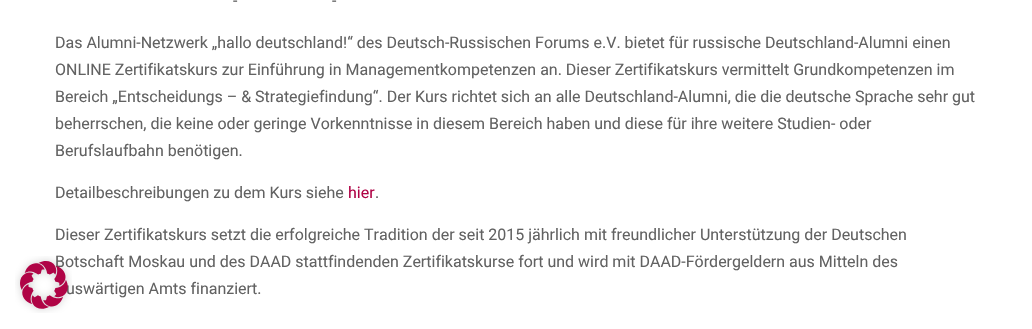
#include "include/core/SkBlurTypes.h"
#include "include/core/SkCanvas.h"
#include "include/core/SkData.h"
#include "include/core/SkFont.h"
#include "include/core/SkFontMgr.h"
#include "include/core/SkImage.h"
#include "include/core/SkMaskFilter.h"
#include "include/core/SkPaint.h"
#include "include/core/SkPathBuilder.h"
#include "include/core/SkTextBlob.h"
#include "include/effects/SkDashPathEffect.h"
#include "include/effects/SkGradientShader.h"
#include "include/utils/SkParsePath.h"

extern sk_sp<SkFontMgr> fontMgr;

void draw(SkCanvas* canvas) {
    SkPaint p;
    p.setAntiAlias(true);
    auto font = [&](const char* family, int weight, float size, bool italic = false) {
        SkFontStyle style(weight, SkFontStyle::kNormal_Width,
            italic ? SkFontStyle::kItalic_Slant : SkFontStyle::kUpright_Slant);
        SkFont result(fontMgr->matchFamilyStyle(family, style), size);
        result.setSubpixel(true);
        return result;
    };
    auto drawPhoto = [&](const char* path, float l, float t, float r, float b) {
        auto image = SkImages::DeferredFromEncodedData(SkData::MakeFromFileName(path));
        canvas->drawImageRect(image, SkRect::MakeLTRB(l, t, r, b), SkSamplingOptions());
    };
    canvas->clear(0xFFFFFFFF);
    auto font1 = font("Roboto", 400, 16);
    p.setColor(0xFF626262);
    canvas->drawString("Botschaft Moskau und des DAAD stattfindenden Zertifikatskurse fort und wird mit DAAD-Fördergeldern aus Mitteln des", 55, 267, font1, p);
    canvas->drawString("uswärtigen Amts finanziert.", 66, 294, font1, p);
    drawPhoto("media/1.png", 15, 256, 72, 313);
    {
        const struct { const char* s; float x, y; } items[] = {
            {"-", 233, 6},
            {"-", 332, 6},
            {"Das Alumni-Netzwerk „hallo deutschland!“ des Deutsch-Russischen Forums e.V. bietet für russische Deutschland-Alumni einen", 55, 48},
            {"ONLINE Zertifikatskurs zur Einführung in Managementkompetenzen an. Dieser Zertifikatskurs vermittelt Grundkompetenzen im", 55, 75},
            {"Bereich „Entscheidungs – & Strategiefindung“. Der Kurs richtet sich an alle Deutschland-Alumni, die die deutsche Sprache sehr gut", 55, 102},
            {"beherrschen, die keine oder geringe Vorkenntnisse in diesem Bereich haben und diese für ihre weitere Studien- oder", 55, 129},
            {"Berufslaufbahn benötigen.", 55, 156},
            {"Detailbeschreibungen zu dem Kurs siehe", 55, 198},
        };
        for (auto [s, x, y] : items) {
            canvas->drawString(s, x, y, font1, p);
        }
    }
    p.setColor(0xFFB00446);
    canvas->drawString("hier", 348, 198, font1, p);
    p.setColor(0xFF626262);
    canvas->drawString(".", 375, 198, font1, p);
    canvas->drawString("Dieser Zertifikatskurs setzt die erfolgreiche Tradition der seit 2015 jährlich mit freundlicher Unterstützung der Deutschen", 55, 240, font1, p);
}
